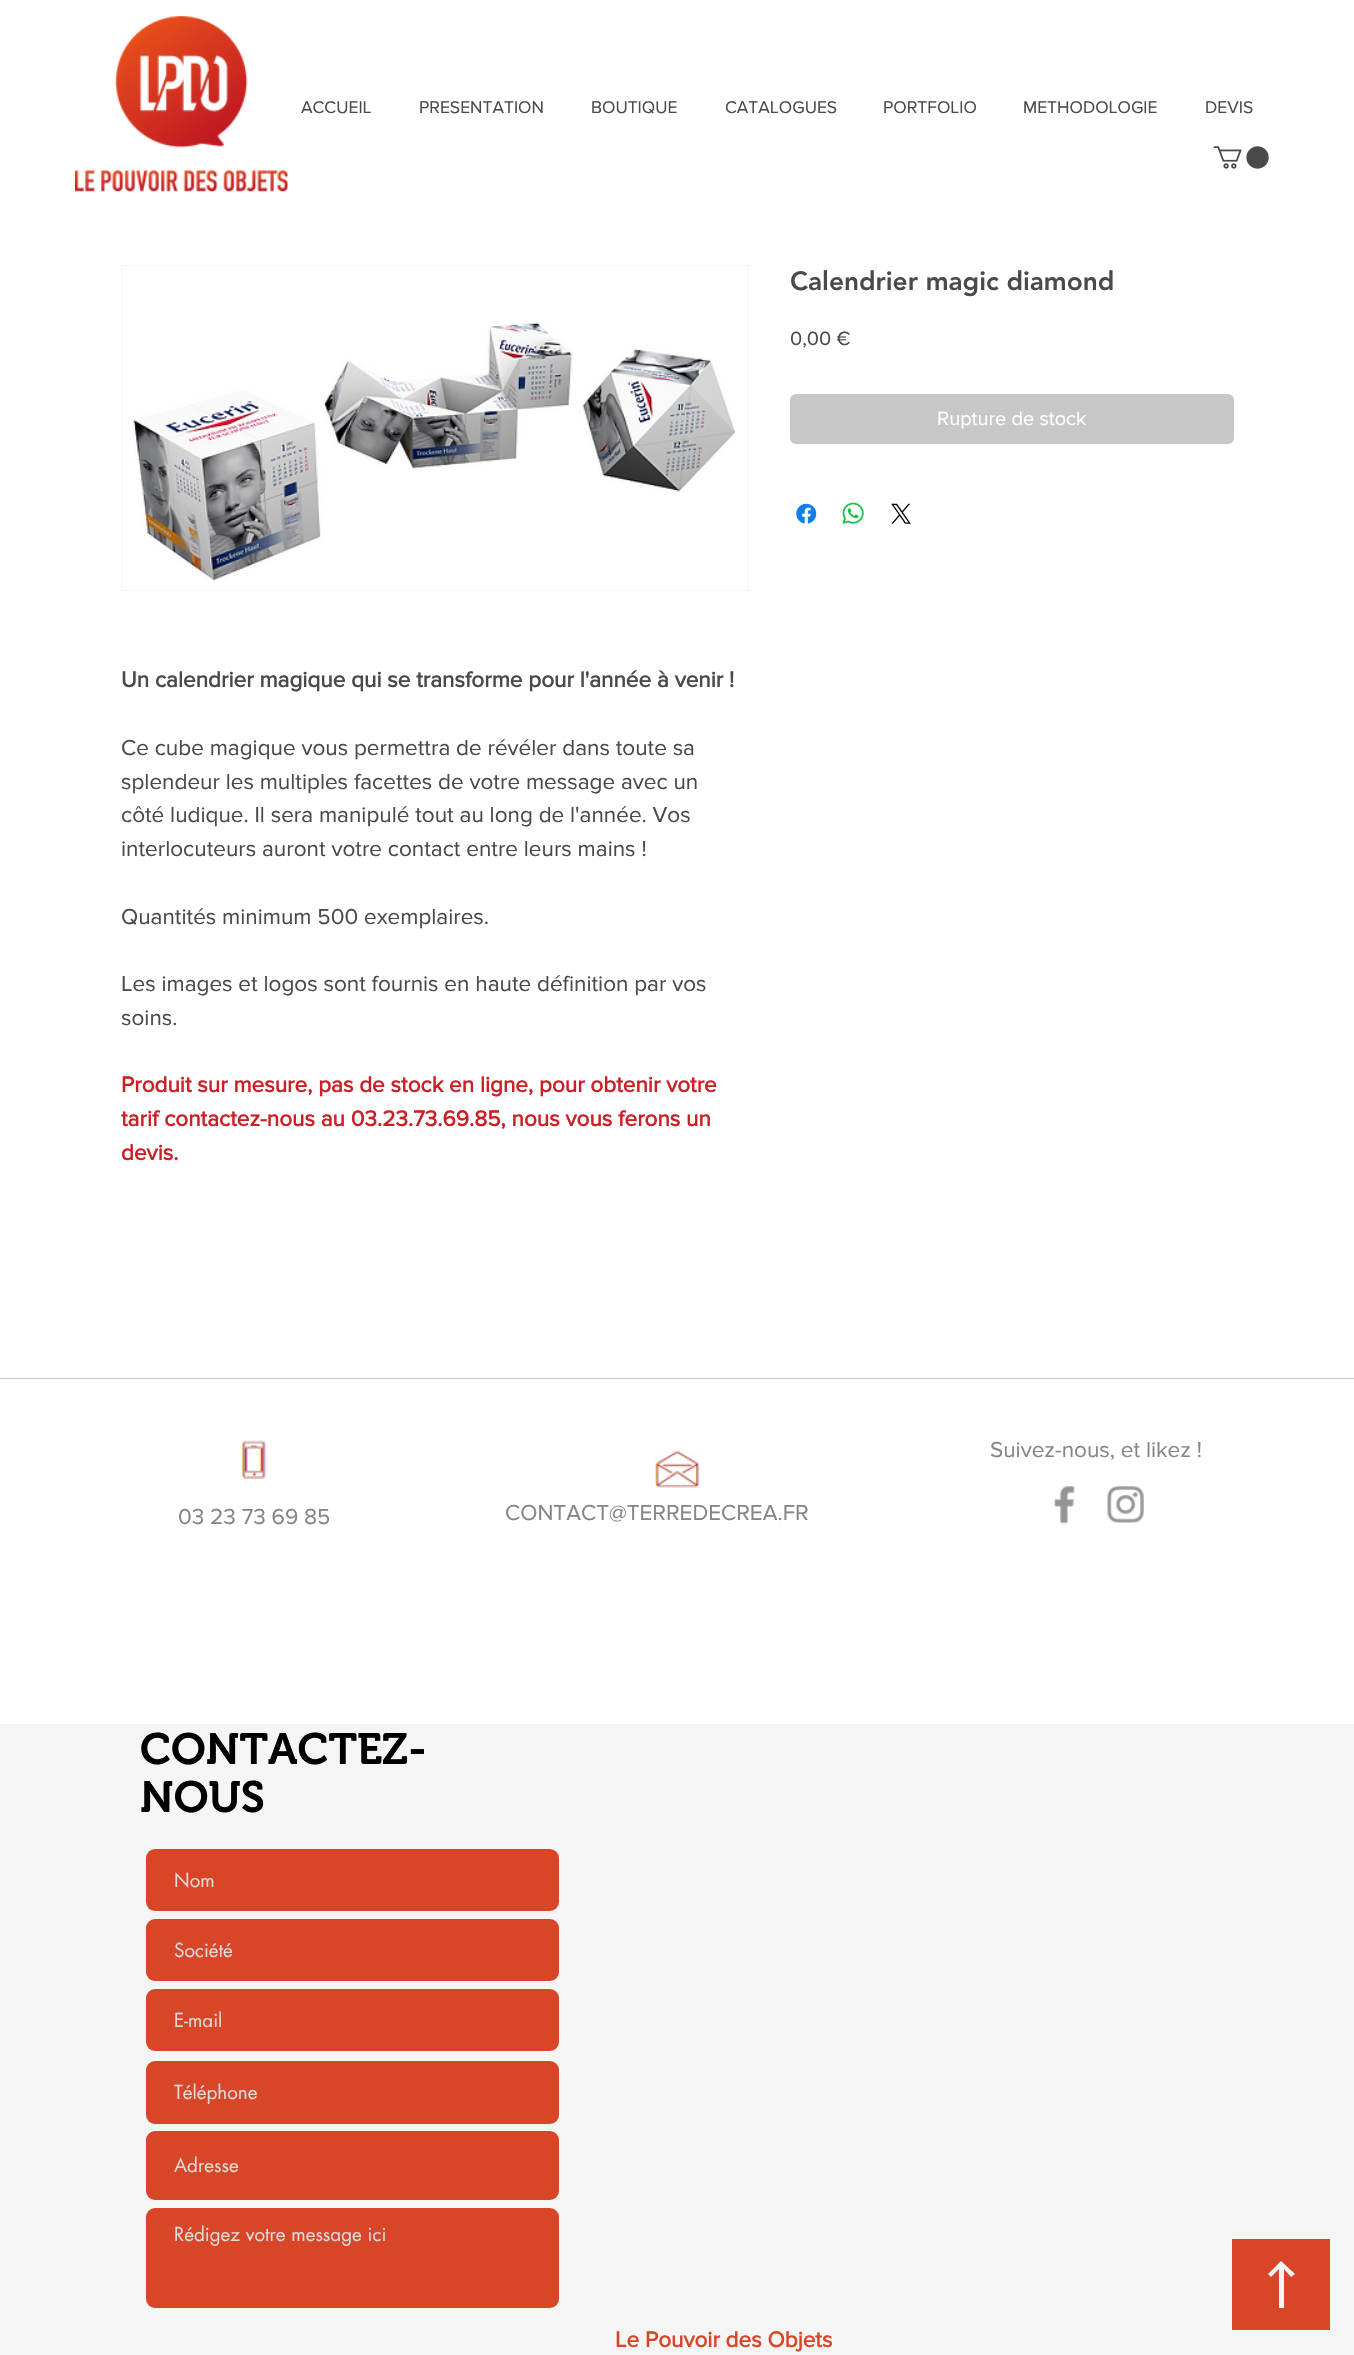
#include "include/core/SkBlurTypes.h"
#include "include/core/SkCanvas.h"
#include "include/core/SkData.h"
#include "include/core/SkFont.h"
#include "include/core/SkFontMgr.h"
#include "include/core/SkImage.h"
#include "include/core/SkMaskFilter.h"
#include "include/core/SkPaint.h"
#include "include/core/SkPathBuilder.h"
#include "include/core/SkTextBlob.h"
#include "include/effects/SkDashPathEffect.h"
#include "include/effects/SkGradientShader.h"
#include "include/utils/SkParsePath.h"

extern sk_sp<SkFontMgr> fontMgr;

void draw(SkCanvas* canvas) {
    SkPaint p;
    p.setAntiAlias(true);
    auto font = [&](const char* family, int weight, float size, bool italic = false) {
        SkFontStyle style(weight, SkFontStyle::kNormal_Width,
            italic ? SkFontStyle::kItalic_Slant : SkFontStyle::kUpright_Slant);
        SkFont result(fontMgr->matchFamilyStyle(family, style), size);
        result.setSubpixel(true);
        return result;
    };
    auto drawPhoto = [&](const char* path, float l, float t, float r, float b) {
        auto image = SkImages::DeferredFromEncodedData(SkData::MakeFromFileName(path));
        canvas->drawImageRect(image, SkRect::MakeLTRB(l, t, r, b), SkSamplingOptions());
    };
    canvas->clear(0xFFFFFFFF);
    drawPhoto("media/1.png", 75, 16, 288, 192);
    auto font1 = font("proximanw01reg", 400, 17.5f);
    p.setColor(0xFF4A4A4A);
    {
        const struct { const char* s; float x, y; } items[] = {
            {"ACCUEIL", 301, 113},
            {"PRESENTATION", 419, 113},
            {"BOUTIQUE", 591, 113},
            {"CATALOGUES", 725, 113},
            {"PORTFOLIO", 883, 113},
            {"METHODOLOGIE", 1023, 113},
            {"DEVIS", 1205, 113},
        };
        for (auto [s, x, y] : items) {
            canvas->drawString(s, x, y, font1, p);
        }
    }
    drawPhoto("media/2.png", 1213, 146, 1269, 169);
    auto font2 = font("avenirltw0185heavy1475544", 900, 26.25f);
    canvas->drawString("Calendrier magic diamond", 790, 290, font2, p);
    auto font3 = font("proximanw01reg", 400, 20);
    canvas->drawString("0,00 €", 790, 345, font3, p);
    p.setColor(0xFFC7C7C7);
    canvas->drawRoundRect(SkRect::MakeLTRB(790, 394, 1234, 444), 6, 6, p);
    p.setColor(0xFFFFFFFF);
    canvas->drawString("Rupture de stock", 937, 425, font3, p);
    drawPhoto("media/3.png", 796, 503, 817, 524);
    drawPhoto("media/4.png", 842, 502, 864, 524);
    drawPhoto("media/5.png", 891, 503, 911, 524);
    p.setStyle(SkPaint::kStroke_Style);
    p.setStrokeWidth(1);
    p.setColor(0xFFF5F5F5);
    canvas->drawRect(SkRect::MakeLTRB(121.5f, 265.5f, 748.5f, 590.5f), p);
    drawPhoto("media/6.png", 133, 322, 736, 581);
    auto font4 = font("proximanw01reg", 700, 22.5f);
    p.setStyle(SkPaint::kFill_Style);
    p.setColor(0xFF4A4A4A);
    canvas->drawString("Un calendrier magique qui se transforme pour l'année à venir !", 121, 687, font4, p);
    auto font5 = font("proximanw01reg", 400, 22.5f);
    {
        const struct { const char* s; float x, y; } items[] = {
            {"Ce cube magique vous permettra de révéler dans toute sa", 121, 755},
            {"splendeur les multiples facettes de votre message avec un", 121, 789},
            {"côté ludique. Il sera manipulé tout au long de l'année. Vos", 121, 822},
            {"interlocuteurs auront votre contact entre leurs mains !", 121, 856},
            {"Quantités minimum 500 exemplaires.", 121, 924},
            {"Les images et logos sont fournis en haute définition par vos", 121, 991},
            {"soins.", 121, 1025},
        };
        for (auto [s, x, y] : items) {
            canvas->drawString(s, x, y, font5, p);
        }
    }
    p.setColor(0xFFCB2026);
    {
        const struct { const char* s; float x, y; } items[] = {
            {"Produit sur mesure, pas de stock en ligne, pour obtenir votre", 121, 1092},
            {"tarif contactez-nous au 03.23.73.69.85, nous vous ferons un", 121, 1126},
            {"devis.", 121, 1160},
        };
        for (auto [s, x, y] : items) {
            canvas->drawString(s, x, y, font4, p);
        }
    }
    p.setColor(0xFFC7C7C7);
    canvas->drawRect(SkRect::MakeLTRB(0, 1378, 1354, 1379), p);
    drawPhoto("media/7.png", 241, 1440, 267, 1479);
    drawPhoto("media/8.png", 655, 1450, 700, 1488);
    p.setColor(0xFF858583);
    {
        const struct { const char* s; float x, y; } items[] = {
            {"Suivez-nous, et likez !", 990, 1457},
            {"03 23 73 69 85", 178, 1524},
            {"CONTACT@TERREDECREA.FR", 505, 1520},
        };
        for (auto [s, x, y] : items) {
            canvas->drawString(s, x, y, font5, p);
        }
    }
    drawPhoto("media/9.png", 1054, 1486, 1075, 1524);
    drawPhoto("media/10.png", 1107, 1486, 1144, 1523);
    p.setColor(0xFFF5F5F5);
    canvas->drawRect(SkRect::MakeLTRB(0, 1724, 1354, 2355), p);
    auto font6 = font("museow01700", 600, 43.75f);
    p.setColor(0xFF000000);
    canvas->drawString("CONTACTEZ-", 140, 1764, font6, p);
    canvas->drawString("NOUS", 140, 1812, font6, p);
    p.setColor(0xFFD94527);
    canvas->drawRoundRect(SkRect::MakeLTRB(146, 1849, 559, 1911), 9, 9, p);
    auto font7 = font("futura", 400, 18.75f);
    p.setColor(0xFFDBDBDB);
    canvas->drawString("Nom", 174, 1887, font7, p);
    p.setColor(0xFFD94527);
    canvas->drawRoundRect(SkRect::MakeLTRB(146, 1919, 559, 1981), 9, 9, p);
    p.setColor(0xFFDBDBDB);
    canvas->drawString("Société", 174, 1957, font7, p);
    p.setColor(0xFFD94527);
    canvas->drawRoundRect(SkRect::MakeLTRB(146, 1989, 559, 2051), 9, 9, p);
    p.setColor(0xFFDBDBDB);
    canvas->drawString("E-mail", 174, 2027, font7, p);
    p.setColor(0xFFD94527);
    canvas->drawRoundRect(SkRect::MakeLTRB(146, 2061, 559, 2124), 9, 9, p);
    p.setColor(0xFFDBDBDB);
    canvas->drawString("Téléphone", 174, 2099, font7, p);
    p.setColor(0xFFD94527);
    canvas->drawRoundRect(SkRect::MakeLTRB(146, 2131, 559, 2200), 9, 9, p);
    p.setColor(0xFFDBDBDB);
    canvas->drawString("Adresse", 174, 2172, font7, p);
    p.setColor(0xFFD94527);
    canvas->drawRoundRect(SkRect::MakeLTRB(146, 2208, 559, 2308), 9, 9, p);
    p.setColor(0xFFDBDBDB);
    canvas->drawString("Rédigez votre message ici", 174, 2241, font7, p);
    p.setColor(0xFFD94527);
    canvas->drawString("Le Pouvoir des Objets", 615, 2347, font4, p);
    canvas->drawPath(SkPathBuilder().moveTo(1232, 2239).lineTo(1232, 2330).lineTo(1330, 2330).lineTo(1330, 2239).close().moveTo(1291, 2277).lineTo(1284, 2269).lineTo(1284, 2308).lineTo(1279, 2308).lineTo(1279, 2269).lineTo(1271, 2277).lineTo(1268, 2274).lineTo(1281, 2261).lineTo(1295, 2274).close().detach(), p);
}
